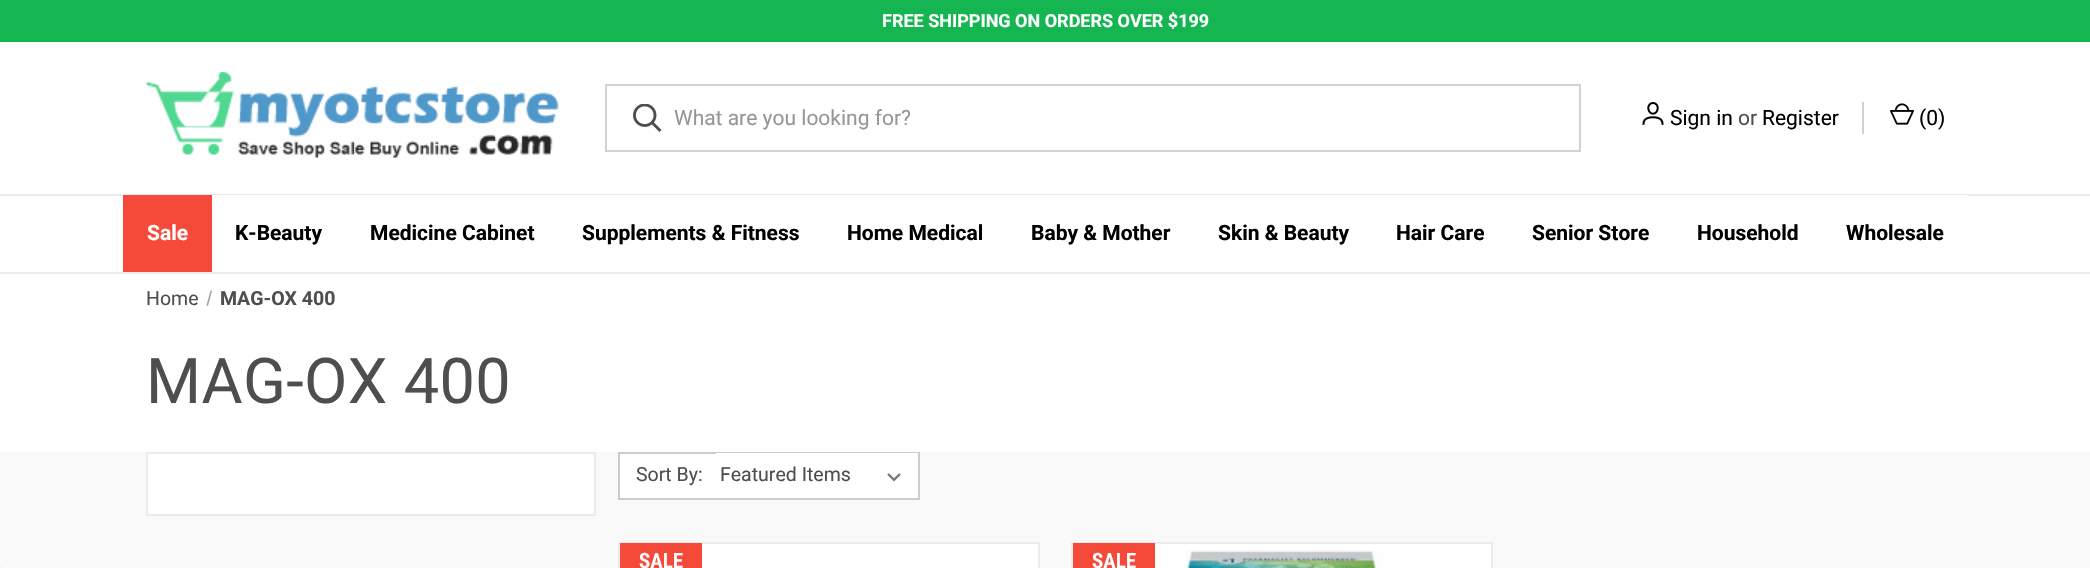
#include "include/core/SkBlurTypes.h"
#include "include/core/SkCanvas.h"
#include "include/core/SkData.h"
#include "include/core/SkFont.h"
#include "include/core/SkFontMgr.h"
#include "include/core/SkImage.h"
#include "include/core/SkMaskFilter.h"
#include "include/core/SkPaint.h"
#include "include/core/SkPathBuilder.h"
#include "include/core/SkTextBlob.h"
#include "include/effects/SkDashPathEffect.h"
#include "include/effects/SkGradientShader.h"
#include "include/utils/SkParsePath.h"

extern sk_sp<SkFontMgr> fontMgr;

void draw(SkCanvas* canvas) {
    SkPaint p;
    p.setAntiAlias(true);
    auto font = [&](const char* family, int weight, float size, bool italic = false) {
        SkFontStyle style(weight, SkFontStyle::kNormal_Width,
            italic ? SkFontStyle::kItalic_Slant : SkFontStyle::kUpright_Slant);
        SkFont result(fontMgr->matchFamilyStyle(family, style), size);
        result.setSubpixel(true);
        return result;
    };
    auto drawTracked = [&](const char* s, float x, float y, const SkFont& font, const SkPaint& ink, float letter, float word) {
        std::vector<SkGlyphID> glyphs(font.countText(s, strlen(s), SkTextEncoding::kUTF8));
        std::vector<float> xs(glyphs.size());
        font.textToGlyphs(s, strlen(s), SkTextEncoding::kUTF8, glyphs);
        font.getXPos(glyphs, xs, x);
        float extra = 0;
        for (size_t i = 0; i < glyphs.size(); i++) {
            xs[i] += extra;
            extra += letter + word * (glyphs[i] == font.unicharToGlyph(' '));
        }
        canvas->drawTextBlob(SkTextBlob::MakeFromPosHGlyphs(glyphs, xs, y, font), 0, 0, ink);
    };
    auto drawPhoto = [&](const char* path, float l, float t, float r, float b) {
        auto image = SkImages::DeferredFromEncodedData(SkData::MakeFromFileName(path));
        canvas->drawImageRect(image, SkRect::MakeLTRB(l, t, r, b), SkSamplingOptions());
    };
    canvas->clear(0xFFFFFFFF);
    p.setColor(0xFF15B651);
    canvas->drawRect(SkRect::MakeLTRB(0, 0, 2090, 42), p);
    auto font1 = font("Roboto", 700, 18);
    p.setColor(0xFFFFFFFF);
    canvas->drawString("FREE SHIPPING ON ORDERS OVER $199", 882, 27, font1, p);
    drawPhoto("media/1.png", 145, 72, 559, 158);
    p.setStyle(SkPaint::kStroke_Style);
    p.setStrokeWidth(2);
    p.setColor(0xFFD2D2D2);
    canvas->drawRect(SkRect::MakeLTRB(606, 85, 1580, 151), p);
    drawPhoto("media/2.png", 633, 104, 662, 132);
    auto font2 = font("Roboto", 400, 21);
    p.setStyle(SkPaint::kFill_Style);
    p.setColor(0xFF969696);
    canvas->drawString("What are you looking for?", 674, 125, font2, p);
    drawPhoto("media/3.png", 1642, 102, 1664, 125);
    p.setColor(0xFF000000);
    canvas->drawString("Sign in", 1670, 125, font2, p);
    p.setColor(0xFF4E4E4E);
    canvas->drawString("or", 1738, 125, font2, p);
    p.setColor(0xFF000000);
    canvas->drawString("Register", 1762, 125, font2, p);
    p.setColor(0xFFD2D2D2);
    canvas->drawRect(SkRect::MakeLTRB(1862, 102, 1864, 134), p);
    drawPhoto("media/4.png", 1890, 103, 1914, 125);
    p.setColor(0xFF000000);
    canvas->drawString("(0)", 1919, 125, font2, p);
    {
        const struct { float l, t, r, b; SkColor color; } items[] = {
            {0, 194, 2090, 196, 0xFFEBEBEB},
            {0, 272, 2090, 274, 0xFFEBEBEB},
            {212, 195, 1968, 196, 0xFFFFFFFF},
            {123, 195, 212, 272, 0xFFF54A3A},
        };
        for (auto [l, t, r, b, color] : items) {
            p.setColor(color);
            canvas->drawRect(SkRect::MakeLTRB(l, t, r, b), p);
        }
    }
    auto font3 = font("Roboto", 700, 21);
    p.setColor(0xFFFFFFFF);
    canvas->drawString("Sale", 147, 240, font3, p);
    p.setColor(0xFF000000);
    {
        const struct { const char* s; float x, y; } items[] = {
            {"K-Beauty", 235, 240},
            {"Medicine Cabinet", 370, 240},
            {"Supplements & Fitness", 582, 240},
            {"Home Medical", 847, 240},
            {"Baby & Mother", 1031, 240},
            {"Skin & Beauty", 1218, 240},
            {"Hair Care", 1396, 240},
            {"Senior Store", 1532, 240},
            {"Household", 1697, 240},
            {"Wholesale", 1846, 240},
        };
        for (auto [s, x, y] : items) {
            canvas->drawString(s, x, y, font3, p);
        }
    }
    p.setColor(0xFFF9F9F9);
    canvas->drawRect(SkRect::MakeLTRB(0, 452, 2090, 568), p);
    p.setColor(0xFFF5F5F5);
    canvas->drawRect(SkRect::MakeLTRB(0, 566, 3, 568), p);
    auto font4 = font("Roboto", 400, 19.5f);
    p.setColor(0xFF4E4E4E);
    canvas->drawString("Home", 146, 305, font4, p);
    p.setColor(0xFFA3A3A3);
    canvas->drawPath(SkPathBuilder().moveTo(210.5f, 290.5f).lineTo(212, 291).lineTo(208, 306).lineTo(206.5f, 305.5f).close().detach(), p);
    auto font5 = font("Roboto", 700, 19.5f);
    p.setColor(0xFF4E4E4E);
    canvas->drawString("MAG-OX 400", 220, 305, font5, p);
    auto font6 = font("Roboto", 400, 63);
    drawTracked("MAG-OX 400", 146, 403, font6, p, 0.4f, 0);
    p.setColor(0xFFFFFFFF);
    canvas->drawRect(SkRect::MakeLTRB(147, 453, 595, 515), p);
    p.setStyle(SkPaint::kStroke_Style);
    p.setColor(0xFFEBEBEB);
    canvas->drawRect(SkRect::MakeLTRB(147, 453, 595, 515), p);
    p.setStyle(SkPaint::kFill_Style);
    p.setColor(0xFFFFFFFF);
    canvas->drawRect(SkRect::MakeLTRB(620, 454, 716, 498), p);
    p.setStyle(SkPaint::kStroke_Style);
    p.setColor(0xFFCCCCCC);
    canvas->drawRect(SkRect::MakeLTRB(619, 453, 919, 499), p);
    p.setStyle(SkPaint::kFill_Style);
    p.setColor(0xFF4E4E4E);
    canvas->drawString("Sort By:", 636, 481, font4, p);
    p.setColor(0xFFFFFFFF);
    canvas->drawRect(SkRect::MakeLTRB(716, 453, 918, 498), p);
    drawPhoto("media/5.png", 887, 473, 901, 482);
    p.setColor(0xFF4E4E4E);
    canvas->drawString("Featured Items", 720, 481, font4, p);
    p.setColor(0xFFFFFFFF);
    canvas->drawRect(SkRect::MakeLTRB(702, 544, 1038, 568), p);
    p.setStyle(SkPaint::kStroke_Style);
    p.setColor(0xFFEBEBEB);
    canvas->drawRect(SkRect::MakeLTRB(619, 543, 1039, 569), p);
    p.setStyle(SkPaint::kFill_Style);
    p.setColor(0xFFF54A3A);
    canvas->drawRect(SkRect::MakeLTRB(620, 543, 702, 568), p);
    auto font7 = font("Roboto Condensed", 600, 21);
    p.setColor(0xFFFFFFFF);
    canvas->drawString("SALE", 639, 568, font7, p);
    canvas->drawRect(SkRect::MakeLTRB(1155, 544, 1491, 568), p);
    p.setStyle(SkPaint::kStroke_Style);
    p.setColor(0xFFEBEBEB);
    canvas->drawRect(SkRect::MakeLTRB(1072, 543, 1492, 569), p);
    p.setStyle(SkPaint::kFill_Style);
    p.setColor(0xFFF54A3A);
    canvas->drawRect(SkRect::MakeLTRB(1073, 543, 1155, 568), p);
    p.setColor(0xFFFFFFFF);
    canvas->drawString("SALE", 1092, 568, font7, p);
    drawPhoto("media/6.png", 1186, 550, 1383, 568);
}
